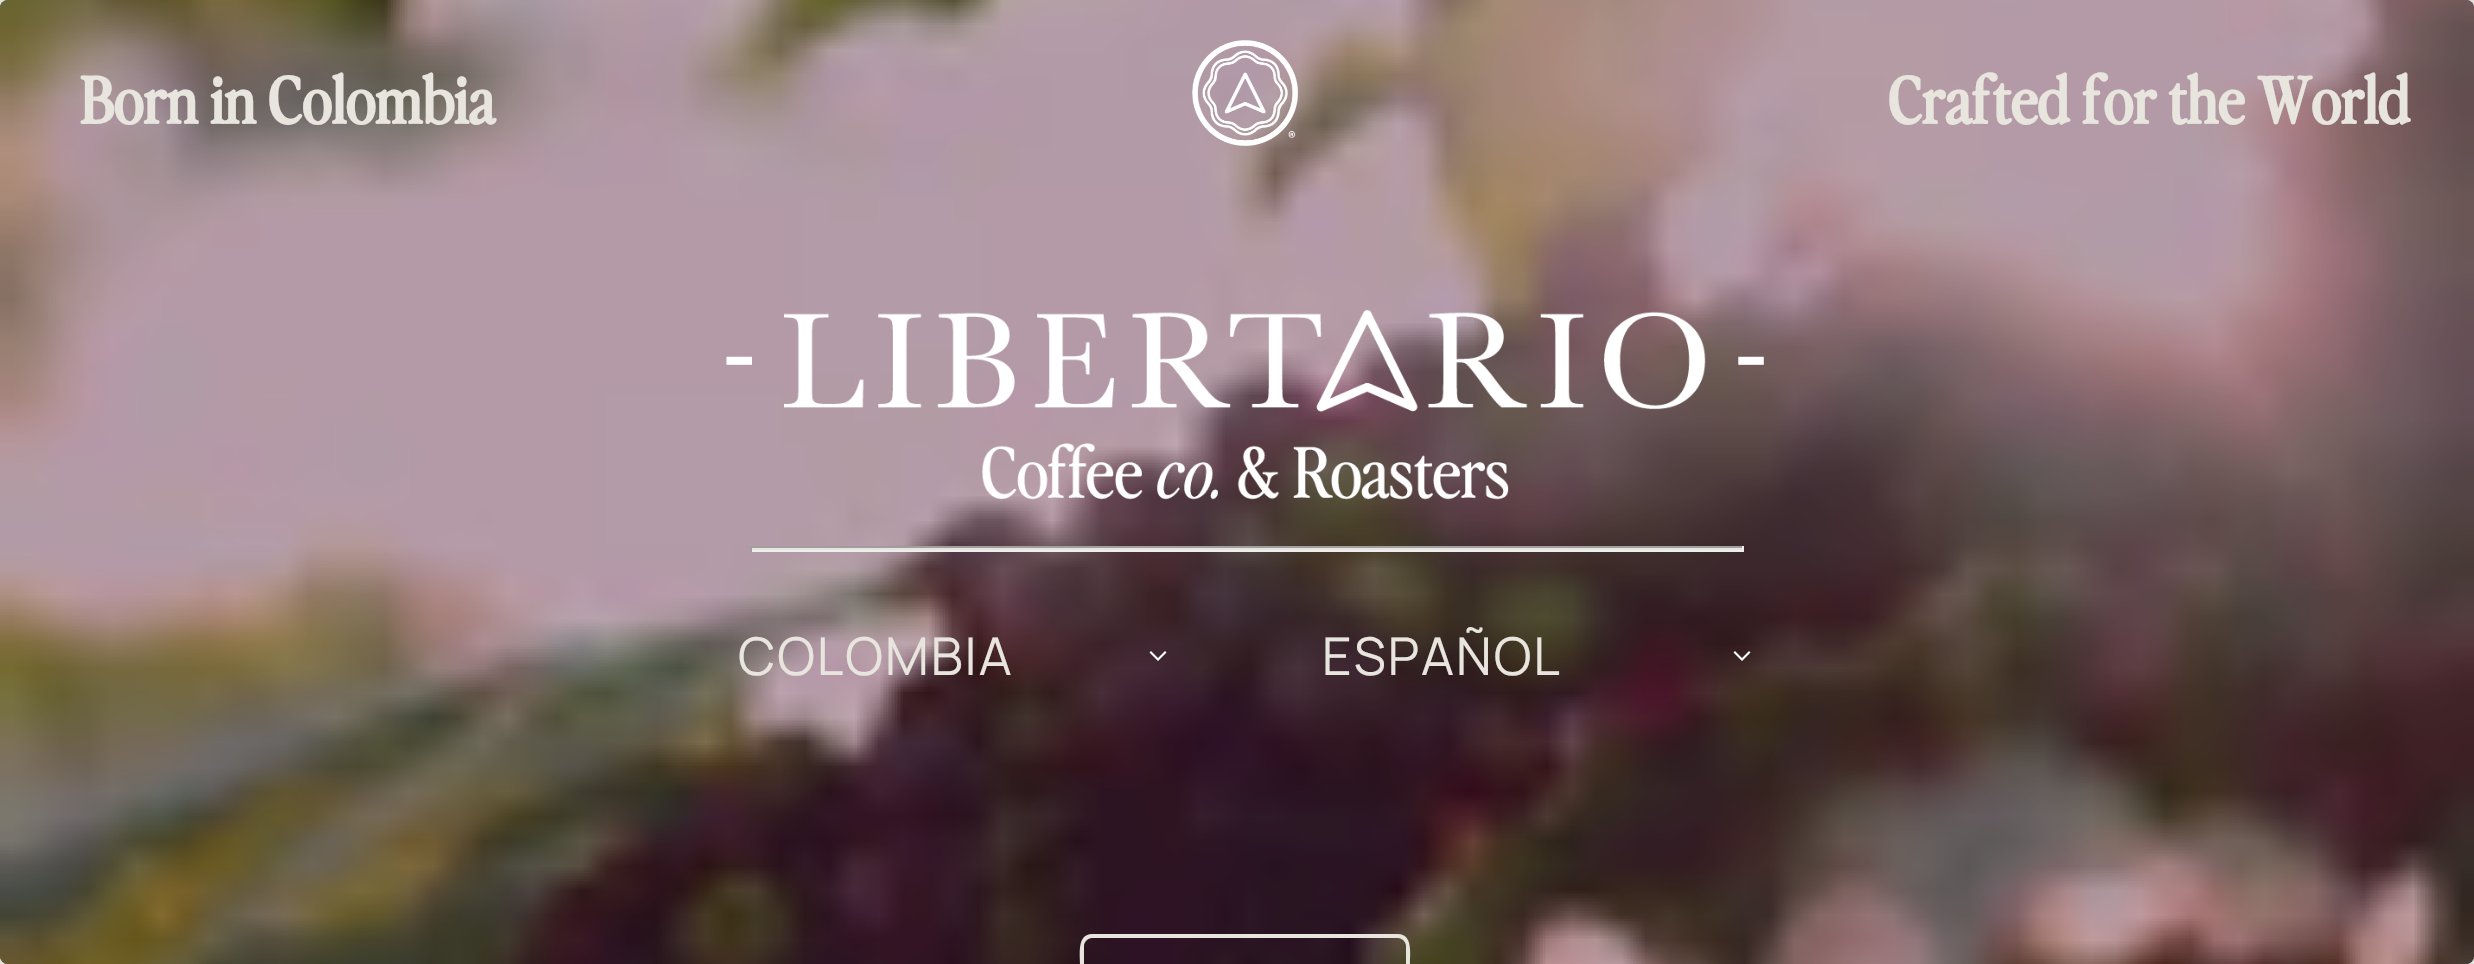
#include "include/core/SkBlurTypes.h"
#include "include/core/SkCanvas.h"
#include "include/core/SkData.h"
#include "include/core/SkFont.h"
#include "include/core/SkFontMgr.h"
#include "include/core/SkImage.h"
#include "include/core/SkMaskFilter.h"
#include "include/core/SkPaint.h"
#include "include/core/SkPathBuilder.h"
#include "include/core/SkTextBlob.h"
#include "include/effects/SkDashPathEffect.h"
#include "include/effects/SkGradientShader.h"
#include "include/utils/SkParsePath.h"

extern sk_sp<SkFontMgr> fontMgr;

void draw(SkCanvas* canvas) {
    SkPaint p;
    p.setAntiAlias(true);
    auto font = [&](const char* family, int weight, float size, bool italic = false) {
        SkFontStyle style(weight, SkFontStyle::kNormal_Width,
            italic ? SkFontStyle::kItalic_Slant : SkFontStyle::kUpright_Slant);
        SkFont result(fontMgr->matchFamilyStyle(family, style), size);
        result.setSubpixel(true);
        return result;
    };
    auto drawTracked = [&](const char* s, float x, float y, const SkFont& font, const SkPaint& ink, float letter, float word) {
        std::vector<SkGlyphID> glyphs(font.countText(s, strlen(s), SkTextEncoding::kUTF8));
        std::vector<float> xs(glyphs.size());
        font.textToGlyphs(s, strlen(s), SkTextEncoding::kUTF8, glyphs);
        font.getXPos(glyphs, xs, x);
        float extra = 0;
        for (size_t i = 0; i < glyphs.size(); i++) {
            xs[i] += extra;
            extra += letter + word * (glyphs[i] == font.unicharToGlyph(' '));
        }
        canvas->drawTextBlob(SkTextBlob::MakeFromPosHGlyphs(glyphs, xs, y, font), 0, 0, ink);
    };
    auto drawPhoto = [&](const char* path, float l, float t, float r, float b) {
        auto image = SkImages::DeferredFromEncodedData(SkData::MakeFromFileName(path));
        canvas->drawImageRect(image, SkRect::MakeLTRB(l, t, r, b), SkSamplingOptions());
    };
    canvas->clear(0xFFE8E4DE);
    p.setColor(0x14000000);
    p.setMaskFilter(SkMaskFilter::MakeBlur(kNormal_SkBlurStyle, 10));
    canvas->drawRoundRect(SkRect::MakeLTRB(0, 0, 2474, 964), 8, 8, p);
    p.setMaskFilter(nullptr);
    p.setColor(0xFF182B55);
    canvas->drawRoundRect(SkRect::MakeLTRB(0, 0, 2474, 964), 8, 8, p);
    drawPhoto("media/1.png", 0, 0, 2474, 964);
    auto font1 = font("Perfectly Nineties", 700, 64);
    p.setColor(0xFFE8E4DE);
    canvas->drawString("Born in Colombia", 80, 124, font1, p);
    drawPhoto("media/2.png", 1192, 40, 1298, 146);
    canvas->drawString("Crafted for the World", 1888, 124, font1, p);
    drawPhoto("media/3.png", 726, 310, 1764, 500);
    {
        const struct { float l, t, r, b; SkColor color; } items[] = {
            {750, 548, 1744, 550, 0xFFE8E4DE},
            {750, 546, 1744, 548, 0xFF9F9F9F},
            {1742, 546, 1744, 552, 0xFFEEEEEE},
            {750, 550, 1744, 552, 0xFFEEEEEE},
            {750, 546, 752, 552, 0xFF9F9F9F},
        };
        for (auto [l, t, r, b, color] : items) {
            p.setColor(color);
            canvas->drawRect(SkRect::MakeLTRB(l, t, r, b), p);
        }
    }
    auto font2 = font("Manrope", 400, 52);
    p.setColor(0xFFE8E4DE);
    drawTracked("COLOMBIA", 738, 675, font2, p, 2, 0);
    p.setColor(0xFFFFFFFF);
    canvas->drawPath(SkPathBuilder().moveTo(1158, 658).lineTo(1165, 651).lineTo(1166.5f, 652.5f).lineTo(1158, 661).lineTo(1149.5f, 652.5f).lineTo(1151, 651).close().detach(), p);
    p.setColor(0xFFE8E4DE);
    drawTracked("ESPAÑOL", 1322, 675, font2, p, 2, 0);
    p.setColor(0xFFFFFFFF);
    canvas->drawPath(SkPathBuilder().moveTo(1742, 658).lineTo(1749, 651).lineTo(1750.5f, 652.5f).lineTo(1742, 661).lineTo(1733.5f, 652.5f).lineTo(1735, 651).close().detach(), p);
    p.setColor(0xFFE8E4DE);
    canvas->drawPath(SkPathBuilder().moveTo(1092, 934).cubicTo(1077, 934, 1080, 954, 1080, 964).lineTo(1084, 964).lineTo(1084, 946).cubicTo(1084, 942, 1088, 938, 1092, 938).lineTo(1398, 938).cubicTo(1402, 938, 1406, 942, 1406, 946).lineTo(1406, 964).lineTo(1410, 964).cubicTo(1410, 954, 1413, 934, 1398, 934).close().detach(), p);
}
